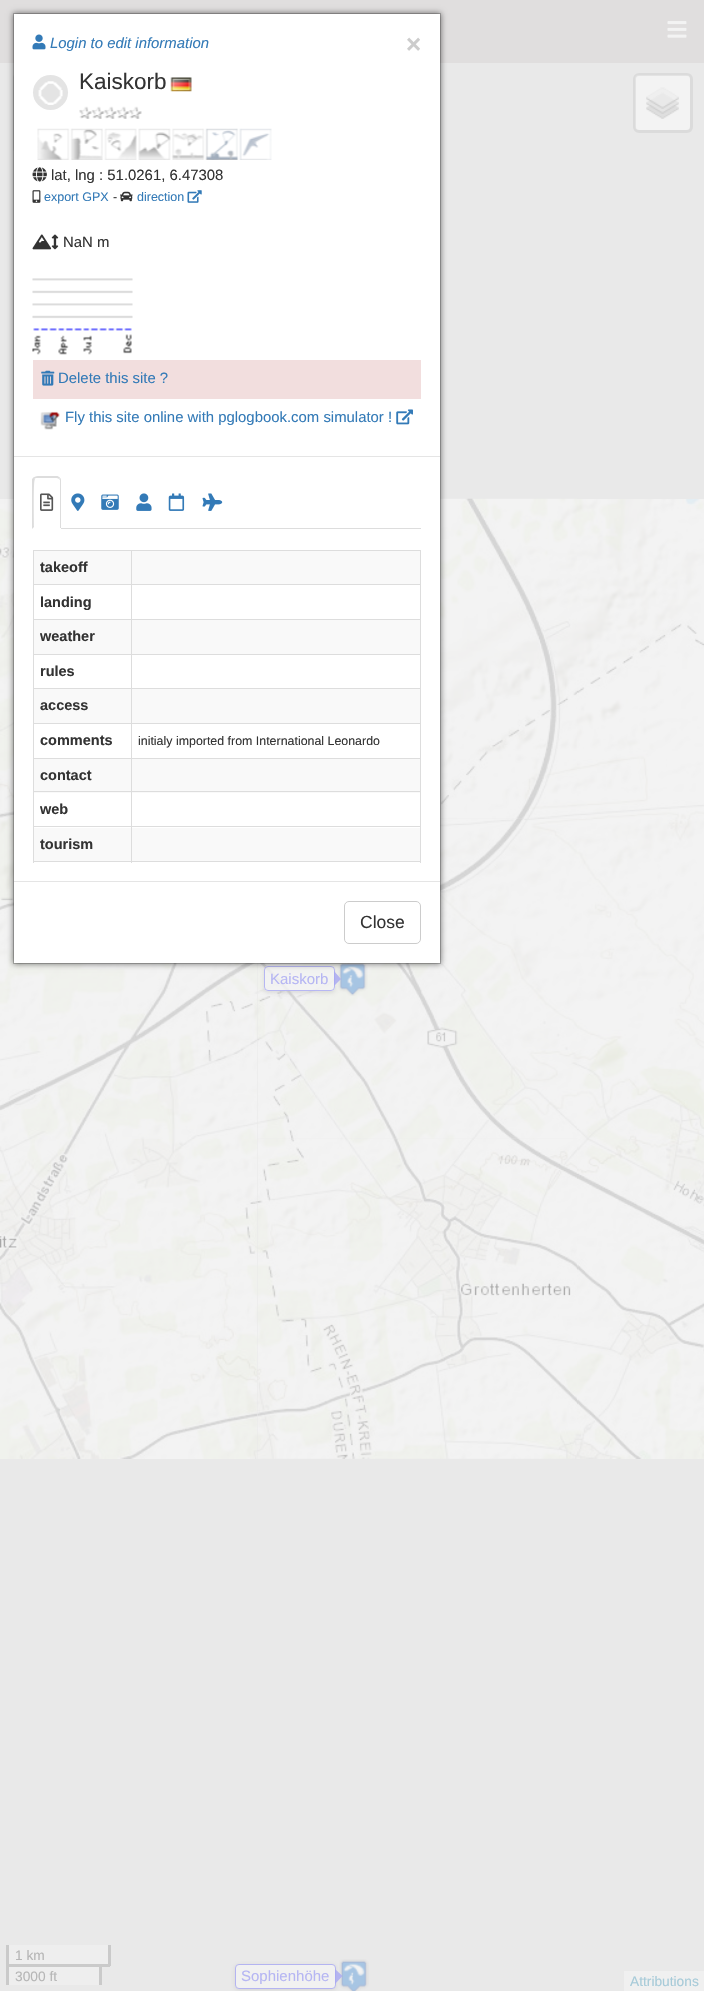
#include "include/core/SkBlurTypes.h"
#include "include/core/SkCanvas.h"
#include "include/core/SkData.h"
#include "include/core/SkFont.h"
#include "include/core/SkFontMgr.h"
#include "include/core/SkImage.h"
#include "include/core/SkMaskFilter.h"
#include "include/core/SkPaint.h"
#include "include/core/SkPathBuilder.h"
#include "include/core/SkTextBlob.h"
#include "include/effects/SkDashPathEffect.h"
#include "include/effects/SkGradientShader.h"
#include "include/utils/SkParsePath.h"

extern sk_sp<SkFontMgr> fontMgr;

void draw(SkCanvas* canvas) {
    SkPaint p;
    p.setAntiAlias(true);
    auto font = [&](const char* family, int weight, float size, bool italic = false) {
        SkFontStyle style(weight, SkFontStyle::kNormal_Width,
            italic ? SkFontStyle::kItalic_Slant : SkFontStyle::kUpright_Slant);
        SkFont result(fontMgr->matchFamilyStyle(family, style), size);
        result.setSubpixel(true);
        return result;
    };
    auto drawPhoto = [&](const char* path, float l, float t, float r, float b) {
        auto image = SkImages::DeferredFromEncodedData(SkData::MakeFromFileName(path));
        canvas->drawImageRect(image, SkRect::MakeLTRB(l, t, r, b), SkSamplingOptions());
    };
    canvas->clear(0xFFE9E9E9);
    p.setColor(0xFFE0DEDE);
    canvas->drawRect(SkRect::MakeLTRB(0, 0, 704, 63), p);
    drawPhoto("media/1.png", 667, 21, 687, 38);
    drawPhoto("media/23.png", 0, 499, 14, 819);
    drawPhoto("media/27.png", 257, 818, 577, 1139);
    drawPhoto("media/24.png", 440, 498, 578, 819);
    drawPhoto("media/26.png", 0, 819, 257, 1139);
    drawPhoto("media/32.png", 337, 963, 368, 996);
    canvas->save();
    canvas->clipPath(SkPathBuilder(SkPathFillType::kEvenOdd).moveTo(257, 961).lineTo(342, 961).lineTo(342, 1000).lineTo(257, 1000).close().moveTo(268, 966).lineTo(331, 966).cubicTo(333, 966, 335, 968, 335, 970).lineTo(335, 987).cubicTo(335, 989, 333, 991, 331, 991).lineTo(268, 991).cubicTo(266, 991, 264, 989, 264, 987).lineTo(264, 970).cubicTo(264, 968, 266, 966, 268, 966).close().detach(), true);
    p.setColor(0x52A7A7A7);
    p.setMaskFilter(SkMaskFilter::MakeBlur(kNormal_SkBlurStyle, 2));
    canvas->drawRoundRect(SkRect::MakeLTRB(264, 968, 335, 993), 4, 4, p);
    p.setMaskFilter(nullptr);
    canvas->restore();
    p.setColor(0xCCF3F3F3);
    canvas->drawRoundRect(SkRect::MakeLTRB(264, 966, 335, 991), 4, 4, p);
    p.setStyle(SkPaint::kStroke_Style);
    p.setStrokeWidth(1);
    p.setColor(0xCCA7A7F3);
    canvas->drawRoundRect(SkRect::MakeLTRB(264.5f, 966.5f, 334.5f, 990.5f), 3.5f, 3.5f, p);
    p.setStyle(SkPaint::kFill_Style);
    canvas->drawPath(SkPathBuilder().moveTo(334, 986).lineTo(334, 971).lineTo(341, 979).close().detach(), p);
    p.setStyle(SkPaint::kStroke_Style);
    p.setStrokeWidth(3);
    p.setColor(0xFFDCDCDC);
    canvas->drawRoundRect(SkRect::MakeLTRB(14.5f, 74.5f, 53.5f, 151.5f), 3.5f, 3.5f, p);
    p.setStyle(SkPaint::kFill_Style);
    p.setColor(0x80000000);
    p.setMaskFilter(SkMaskFilter::MakeBlur(kNormal_SkBlurStyle, 3));
    canvas->drawRect(SkRect::MakeLTRB(13, 13, 441, 964), p);
    p.setMaskFilter(nullptr);
    p.setColor(0xFFFFFFFF);
    canvas->drawRect(SkRect::MakeLTRB(14, 14, 440, 963), p);
    p.setStyle(SkPaint::kStroke_Style);
    p.setStrokeWidth(1);
    p.setColor(0x33000000);
    canvas->drawRect(SkRect::MakeLTRB(13.5f, 13.5f, 440.5f, 963.5f), p);
    p.setStyle(SkPaint::kFill_Style);
    p.setColor(0xFFE5E5E5);
    canvas->drawRect(SkRect::MakeLTRB(14, 456, 440, 457), p);
    drawPhoto("media/2.png", 32, 34, 46, 50);
    auto font1 = font("Liberation Sans", 400, 14.9f, true);
    p.setColor(0xFF337AB7);
    canvas->drawString("Login to edit information", 50, 48, font1, p);
    p.setColor(0xFFE4E4E4);
    canvas->drawCircle(50.5f, 92.5f, 17.5f, p);
    drawPhoto("media/3.png", 38, 81, 63, 105);
    auto font2 = font("Liberation Sans", 400, 22.5f);
    p.setColor(0xFF333333);
    canvas->drawString("Kaiskorb", 79, 89, font2, p);
    drawPhoto("media/4.png", 170, 77, 192, 92);
    drawPhoto("media/5.png", 79, 106, 142, 119);
    drawPhoto("media/6.png", 37, 128, 272, 160);
    drawPhoto("media/7.png", 32, 167, 47, 182);
    auto font3 = font("Liberation Sans", 400, 14.9f);
    canvas->drawString("lat, lng : 51.0261, 6.47308", 51, 180, font3, p);
    drawPhoto("media/8.png", 32, 190, 41, 203);
    auto font4 = font("Liberation Sans", 400, 12.5f);
    p.setColor(0xFF337AB7);
    canvas->drawString("export GPX", 44, 201, font4, p);
    p.setColor(0xFF333333);
    canvas->drawString("-", 113, 201, font4, p);
    drawPhoto("media/9.png", 120, 191, 133, 202);
    p.setColor(0xFF337AB7);
    canvas->drawString("direction", 137, 201, font4, p);
    drawPhoto("media/10.png", 187, 190, 202, 203);
    drawPhoto("media/11.png", 32, 234, 52, 250);
    drawPhoto("media/12.png", 51, 234, 59, 250);
    p.setColor(0xFF333333);
    canvas->drawString("NaN m", 63, 247, font3, p);
    drawPhoto("media/13.png", 32, 278, 133, 355);
    p.setColor(0xFFF2DEDE);
    canvas->drawRect(SkRect::MakeLTRB(33, 360, 421, 399), p);
    drawPhoto("media/14.png", 41, 370, 55, 386);
    p.setColor(0xFF337AB7);
    canvas->drawString("Delete this site ?", 58, 383, font3, p);
    drawPhoto("media/15.png", 40, 411, 60, 430);
    canvas->drawString("Fly this site online with pglogbook.com simulator !", 65, 422, font3, p);
    drawPhoto("media/16.png", 396, 409, 413, 425);
    auto font5 = font("Liberation Sans", 700, 26);
    p.setColor(0xFFCCCCCC);
    canvas->drawString("×", 406, 53, font5, p);
    p.setColor(0xFFDDDDDD);
    canvas->drawRect(SkRect::MakeLTRB(61, 528, 421, 529), p);
    canvas->drawPath(SkPathBuilder().moveTo(38, 478).cubicTo(36.5f, 478, 35.5f, 478, 35, 478.5f).lineTo(33.5f, 477.5f).cubicTo(35.5f, 476, 37, 476, 40, 476).lineTo(57.5f, 476).lineTo(60, 477.5f).lineTo(59, 479).cubicTo(58, 478, 57, 478, 56, 478).close().detach(), p);
    canvas->drawPath(SkPathBuilder().moveTo(60, 478).cubicTo(61, 478, 61, 480, 61, 481).lineTo(61, 528).lineTo(60, 528).lineTo(60, 480).lineTo(59, 479).close().moveTo(32, 529).lineTo(32, 479).lineTo(34, 477).lineTo(35, 479).cubicTo(33, 480, 34, 522, 34, 527).close().detach(), p);
    drawPhoto("media/17.png", 40, 493, 54, 511);
    drawPhoto("media/18.png", 71, 493, 85, 511);
    drawPhoto("media/19.png", 101, 494, 119, 510);
    drawPhoto("media/20.png", 136, 493, 152, 511);
    drawPhoto("media/21.png", 168, 493, 185, 511);
    drawPhoto("media/22.png", 202, 493, 223, 511);
    {
        const struct { float l, t, r, b; SkColor color; } items[] = {
            {33, 550, 421, 551, 0xFFDDDDDD},
            {420, 550, 421, 863, 0xFFDDDDDD},
            {33, 861, 421, 862, 0xFFDDDDDD},
            {33, 550, 34, 863, 0xFFDDDDDD},
            {34, 551, 420, 584, 0xFFF9F9F9},
        };
        for (auto [l, t, r, b, color] : items) {
            p.setColor(color);
            canvas->drawRect(SkRect::MakeLTRB(l, t, r, b), p);
        }
    }
    auto font6 = font("Liberation Sans", 700, 14.5f);
    p.setColor(0xFF333333);
    canvas->drawString("takeoff", 40, 572, font6, p);
    {
        const struct { float l, t, r, b; SkColor color; } items[] = {
            {131, 584, 421, 585, 0xFFDDDDDD},
            {131, 619, 421, 620, 0xFFDDDDDD},
            {34, 620, 420, 654, 0xFFF9F9F9},
            {131, 654, 421, 655, 0xFFDDDDDD},
            {131, 688, 421, 689, 0xFFDDDDDD},
            {34, 689, 420, 723, 0xFFF9F9F9},
            {131, 723, 421, 724, 0xFFDDDDDD},
            {131, 758, 421, 759, 0xFFDDDDDD},
            {34, 759, 420, 793, 0xFFF9F9F9},
            {131, 791, 421, 792, 0xFFDDDDDD},
            {131, 826, 421, 827, 0xFFDDDDDD},
            {34, 828, 420, 861, 0xFFF9F9F9},
            {131, 826, 132, 863, 0xFFDDDDDD},
            {33, 826, 133, 827, 0xFFDDDDDD},
            {131, 791, 132, 828, 0xFFDDDDDD},
            {33, 791, 133, 792, 0xFFDDDDDD},
            {131, 758, 132, 793, 0xFFDDDDDD},
            {33, 758, 133, 759, 0xFFDDDDDD},
            {131, 723, 132, 759, 0xFFDDDDDD},
            {33, 723, 133, 724, 0xFFDDDDDD},
            {131, 688, 132, 724, 0xFFDDDDDD},
            {33, 688, 133, 689, 0xFFDDDDDD},
            {131, 654, 132, 689, 0xFFDDDDDD},
            {33, 654, 133, 655, 0xFFDDDDDD},
            {131, 619, 132, 655, 0xFFDDDDDD},
            {33, 619, 133, 620, 0xFFDDDDDD},
            {131, 584, 132, 620, 0xFFDDDDDD},
            {33, 584, 133, 585, 0xFFDDDDDD},
            {131, 550, 132, 585, 0xFFDDDDDD},
        };
        for (auto [l, t, r, b, color] : items) {
            p.setColor(color);
            canvas->drawRect(SkRect::MakeLTRB(l, t, r, b), p);
        }
    }
    p.setColor(0xFF333333);
    {
        const struct { const char* s; float x, y; } items[] = {
            {"landing", 40, 607},
            {"weather", 40, 641},
            {"rules", 40, 676},
            {"access", 40, 710},
            {"comments", 40, 745},
        };
        for (auto [s, x, y] : items) {
            canvas->drawString(s, x, y, font6, p);
        }
    }
    auto font7 = font("Liberation Sans", 400, 12.4f);
    canvas->drawString("initialy imported from International Leonardo", 138, 745, font7, p);
    {
        const struct { const char* s; float x, y; } items[] = {
            {"contact", 40, 780},
            {"web", 40, 814},
            {"tourism", 40, 849},
        };
        for (auto [s, x, y] : items) {
            canvas->drawString(s, x, y, font6, p);
        }
    }
    p.setColor(0xFFE5E5E5);
    canvas->drawRect(SkRect::MakeLTRB(14, 881, 440, 882), p);
    p.setStyle(SkPaint::kStroke_Style);
    p.setColor(0xFFCCCCCC);
    canvas->drawRoundRect(SkRect::MakeLTRB(344.5f, 901.5f, 420.5f, 943.5f), 4.5f, 4.5f, p);
    auto font8 = font("Liberation Sans", 400, 17.5f);
    p.setStyle(SkPaint::kFill_Style);
    p.setColor(0xFF333333);
    canvas->drawString("Close", 360, 928, font8, p);
    p.setColor(0xFFEEEEEE);
    canvas->drawRect(SkRect::MakeLTRB(9, 1967, 99, 1985), p);
    drawPhoto("media/25.png", 577, 499, 704, 819);
    drawPhoto("media/28.png", 577, 819, 704, 1139);
    drawPhoto("media/29.png", 0, 1139, 257, 1459);
    drawPhoto("media/30.png", 257, 1138, 578, 1459);
    drawPhoto("media/31.png", 577, 1139, 704, 1459);
    auto font9 = font("Liberation Sans", 400, 15);
    p.setColor(0xFFB6B6F3);
    canvas->drawString("Kaiskorb", 270, 984, font9, p);
    drawPhoto("media/33.png", 339, 1959, 369, 1991);
    p.setColor(0x52A7A7A7);
    p.setMaskFilter(SkMaskFilter::MakeBlur(kNormal_SkBlurStyle, 2));
    canvas->drawRoundRect(SkRect::MakeLTRB(235, 1965, 336, 1990), 4, 4, p);
    p.setMaskFilter(nullptr);
    p.setColor(0xFFF1F1F1);
    canvas->drawRoundRect(SkRect::MakeLTRB(235.5f, 1964.5f, 335.5f, 1988.5f), 3.5f, 3.5f, p);
    p.setStyle(SkPaint::kStroke_Style);
    p.setColor(0xFFB4B4F1);
    canvas->drawRoundRect(SkRect::MakeLTRB(235.5f, 1964.5f, 335.5f, 1988.5f), 3.5f, 3.5f, p);
    p.setStyle(SkPaint::kFill_Style);
    p.setColor(0xFFB6B6F3);
    canvas->drawString("Sophienhöhe", 241, 1981, font9, p);
    p.setColor(0xCCA7A7F3);
    canvas->drawPath(SkPathBuilder().moveTo(335, 1984).lineTo(335, 1969).lineTo(342.5f, 1976).close().detach(), p);
    p.setColor(0xFFF3F3F3);
    canvas->drawRoundRect(SkRect::MakeLTRB(635, 75, 690, 130), 4, 4, p);
    p.setStyle(SkPaint::kStroke_Style);
    p.setStrokeWidth(3);
    p.setColor(0x33A7A7A7);
    canvas->drawRoundRect(SkRect::MakeLTRB(634.5f, 74.5f, 691.5f, 131.5f), 4.5f, 4.5f, p);
    drawPhoto("media/34.png", 646, 87, 679, 119);
    p.setStyle(SkPaint::kFill_Style);
    {
        const struct { float l, t, r, b; SkColor color; } items[] = {
            {9, 1945, 108, 1964, 0xFFEEEEEE},
            {108, 1945, 111, 1966, 0xFFCACACA},
            {102, 1964, 110, 1967, 0xFFCACACA},
            {6, 1945, 9, 1966, 0xFFCACACA},
        };
        for (auto [l, t, r, b, color] : items) {
            p.setColor(color);
            canvas->drawRect(SkRect::MakeLTRB(l, t, r, b), p);
        }
    }
    auto font10 = font("Liberation Sans", 400, 13.75f);
    p.setColor(0xFFB6B6B6);
    canvas->drawString("1 km", 15, 1960, font10, p);
    {
        const struct { float l, t, r, b; SkColor color; } items[] = {
            {6, 1964, 101, 1967, 0xFFCACACA},
            {99, 1964, 102, 1985, 0xFFCACACA},
            {6, 1964, 9, 1985, 0xFFCACACA},
        };
        for (auto [l, t, r, b, color] : items) {
            p.setColor(color);
            canvas->drawRect(SkRect::MakeLTRB(l, t, r, b), p);
        }
    }
    p.setColor(0xFFB6B6B6);
    canvas->drawString("3000 ft", 15, 1981, font10, p);
    p.setColor(0xFFF0F0F0);
    canvas->drawRect(SkRect::MakeLTRB(624, 1971, 704, 1991), p);
    p.setColor(0xFFA7CBD9);
    canvas->drawString("Attributions", 630, 1986, font10, p);
}
